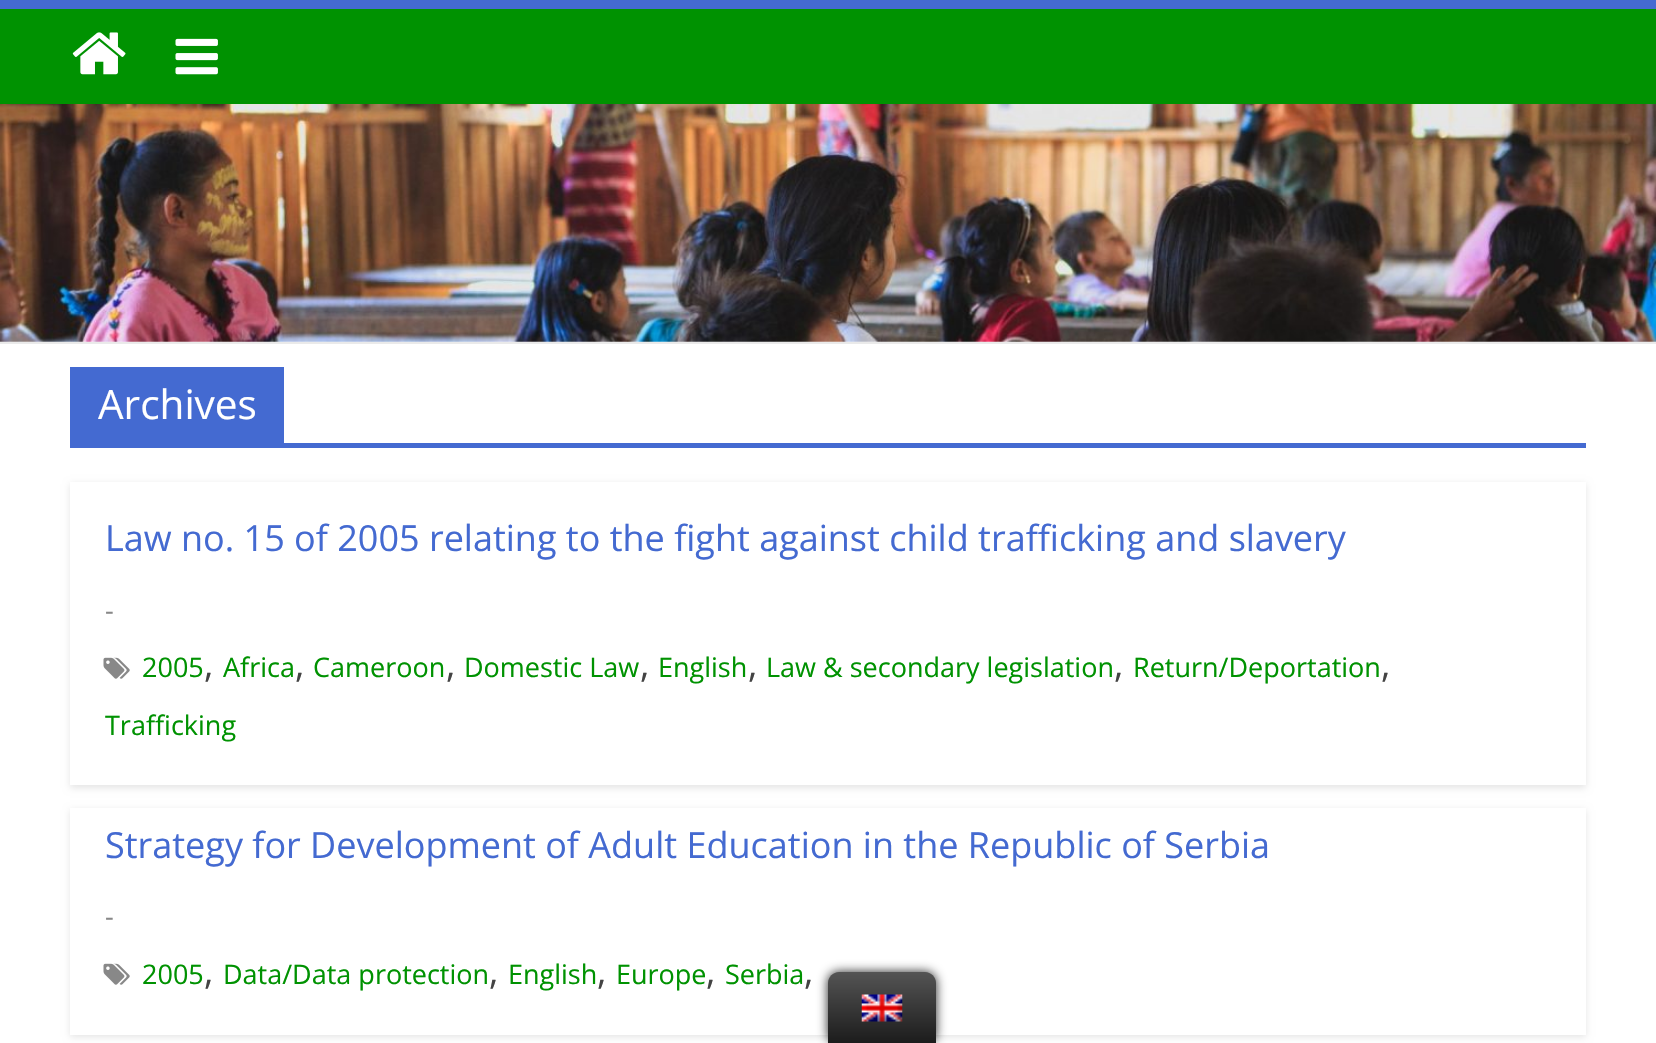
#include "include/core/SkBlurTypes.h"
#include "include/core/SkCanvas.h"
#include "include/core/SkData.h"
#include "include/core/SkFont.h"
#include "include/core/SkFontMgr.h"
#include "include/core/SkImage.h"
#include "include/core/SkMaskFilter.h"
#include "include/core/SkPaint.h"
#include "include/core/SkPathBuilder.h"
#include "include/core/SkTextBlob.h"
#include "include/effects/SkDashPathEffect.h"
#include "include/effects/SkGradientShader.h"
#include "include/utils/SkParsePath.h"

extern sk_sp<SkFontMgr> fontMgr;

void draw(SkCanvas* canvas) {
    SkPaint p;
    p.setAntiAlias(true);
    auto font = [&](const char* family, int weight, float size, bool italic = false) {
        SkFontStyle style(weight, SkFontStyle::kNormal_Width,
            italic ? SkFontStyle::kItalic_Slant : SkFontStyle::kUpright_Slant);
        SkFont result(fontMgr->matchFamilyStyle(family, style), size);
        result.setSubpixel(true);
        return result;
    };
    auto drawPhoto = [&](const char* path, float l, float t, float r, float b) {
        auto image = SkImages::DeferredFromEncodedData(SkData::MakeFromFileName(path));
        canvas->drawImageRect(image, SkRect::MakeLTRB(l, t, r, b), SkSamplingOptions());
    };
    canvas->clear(0xFFFFFFFF);
    p.setColor(0xFF009201);
    canvas->drawRect(SkRect::MakeLTRB(0, 9, 1656, 104), p);
    p.setColor(0xFF446AD1);
    canvas->drawRect(SkRect::MakeLTRB(0, 0, 1656, 9), p);
    drawPhoto("media/1.png", 72, 32, 126, 75);
    drawPhoto("media/2.png", 175, 38, 218, 75);
    drawPhoto("media/3.png", 0, 104, 1656, 342);
    {
        const struct { float l, t, r, b; SkColor color; } items[] = {
            {0, 342, 1656, 344, 0xFFEAEAEA},
            {70, 443, 1586, 448, 0xFF446AD1},
            {70, 367, 284, 443, 0xFF446AD1},
        };
        for (auto [l, t, r, b, color] : items) {
            p.setColor(color);
            canvas->drawRect(SkRect::MakeLTRB(l, t, r, b), p);
        }
    }
    auto font1 = font("Open Sans", 400, 40.5f);
    p.setColor(0xFFFFFFFF);
    canvas->drawString("Archives", 98, 419, font1, p);
    canvas->save();
    canvas->clipPath(SkPathBuilder(SkPathFillType::kEvenOdd).moveTo(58, 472).lineTo(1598, 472).lineTo(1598, 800).lineTo(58, 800).close().moveTo(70, 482).lineTo(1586, 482).lineTo(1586, 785).lineTo(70, 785).close().detach(), true);
    p.setColor(0x1A000000);
    p.setMaskFilter(SkMaskFilter::MakeBlur(kNormal_SkBlurStyle, 3.5f));
    canvas->drawRect(SkRect::MakeLTRB(70, 484, 1586, 788), p);
    p.setMaskFilter(nullptr);
    canvas->restore();
    auto font2 = font("Open Sans", 400, 36);
    p.setColor(0xFF446AD1);
    canvas->drawString("Law no. 15 of 2005 relating to the fight against child trafficking and slavery", 105, 551, font2, p);
    auto font3 = font("Open Sans", 400, 27);
    p.setColor(0xFF888888);
    canvas->drawString("-", 105, 620, font3, p);
    drawPhoto("media/4.png", 103, 657, 130, 679);
    p.setColor(0xFF009201);
    canvas->drawString("2005", 142, 677, font3, p);
    p.setColor(0xFF444444);
    canvas->drawString(",", 204, 677, font2, p);
    p.setColor(0xFF009201);
    canvas->drawString("Africa", 223, 677, font3, p);
    p.setColor(0xFF444444);
    canvas->drawString(",", 295, 677, font2, p);
    p.setColor(0xFF009201);
    canvas->drawString("Cameroon", 313, 677, font3, p);
    p.setColor(0xFF444444);
    canvas->drawString(",", 446, 677, font2, p);
    p.setColor(0xFF009201);
    canvas->drawString("Domestic Law", 464, 677, font3, p);
    p.setColor(0xFF444444);
    canvas->drawString(",", 640, 677, font2, p);
    p.setColor(0xFF009201);
    canvas->drawString("English", 658, 677, font3, p);
    p.setColor(0xFF444444);
    canvas->drawString(",", 748, 677, font2, p);
    p.setColor(0xFF009201);
    canvas->drawString("Law & secondary legislation", 766, 677, font3, p);
    p.setColor(0xFF444444);
    canvas->drawString(",", 1114, 677, font2, p);
    p.setColor(0xFF009201);
    canvas->drawString("Return/Deportation", 1133, 677, font3, p);
    p.setColor(0xFF444444);
    canvas->drawString(",", 1381, 677, font2, p);
    p.setColor(0xFF009201);
    canvas->drawString("Trafficking", 105, 735, font3, p);
    canvas->save();
    canvas->clipPath(SkPathBuilder(SkPathFillType::kEvenOdd).moveTo(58, 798).lineTo(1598, 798).lineTo(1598, 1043).lineTo(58, 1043).close().moveTo(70, 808).lineTo(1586, 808).lineTo(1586, 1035).lineTo(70, 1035).close().detach(), true);
    p.setColor(0x1A000000);
    p.setMaskFilter(SkMaskFilter::MakeBlur(kNormal_SkBlurStyle, 3.5f));
    canvas->drawRect(SkRect::MakeLTRB(70, 810, 1586, 1037), p);
    p.setMaskFilter(nullptr);
    canvas->restore();
    p.setColor(0xFF446AD1);
    canvas->drawString("Strategy for Development of Adult Education in the Republic of Serbia", 105, 858, font2, p);
    p.setColor(0xFF888888);
    canvas->drawString("-", 105, 926, font3, p);
    drawPhoto("media/4.png", 103, 963, 130, 985);
    p.setColor(0xFF009201);
    canvas->drawString("2005", 142, 984, font3, p);
    p.setColor(0xFF444444);
    canvas->drawString(",", 204, 984, font2, p);
    p.setColor(0xFF009201);
    canvas->drawString("Data/Data protection", 223, 984, font3, p);
    p.setColor(0xFF444444);
    canvas->drawString(",", 489, 984, font2, p);
    p.setColor(0xFF009201);
    canvas->drawString("English", 508, 984, font3, p);
    p.setColor(0xFF444444);
    canvas->drawString(",", 597, 984, font2, p);
    p.setColor(0xFF009201);
    canvas->drawString("Europe", 616, 984, font3, p);
    p.setColor(0xFF444444);
    canvas->drawString(",", 706, 984, font2, p);
    p.setColor(0xFF009201);
    canvas->drawString("Serbia", 725, 984, font3, p);
    p.setColor(0xFF444444);
    canvas->drawString(",", 804, 984, font2, p);
    p.setColor(0xFF212121);
    p.setMaskFilter(SkMaskFilter::MakeBlur(kNormal_SkBlurStyle, 5.5f));
    canvas->drawRoundRect(SkRect::MakeLTRB(828, 972, 936, 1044), 11, 11, p);
    p.setMaskFilter(nullptr);
    {
        const SkColor colors[] = {0xFF1B1B1B, 0xFF545454};
        const float stops[] = {0, 1};
        const SkPoint ends[] = {{882, 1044}, {882, 972}};
        p.setShader(SkGradientShader::MakeLinear(ends, colors, stops, 2, SkTileMode::kClamp));
        p.setAlpha(255);
    }
    canvas->drawPath(SkPathBuilder().moveTo(839, 972).lineTo(925, 972).cubicTo(931, 972, 936, 977, 936, 983).lineTo(936, 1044).lineTo(828, 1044).lineTo(828, 983).cubicTo(828, 977, 833, 972, 839, 972).close().detach(), p);
    drawPhoto("media/5.png", 861, 994, 903, 1022);
}
